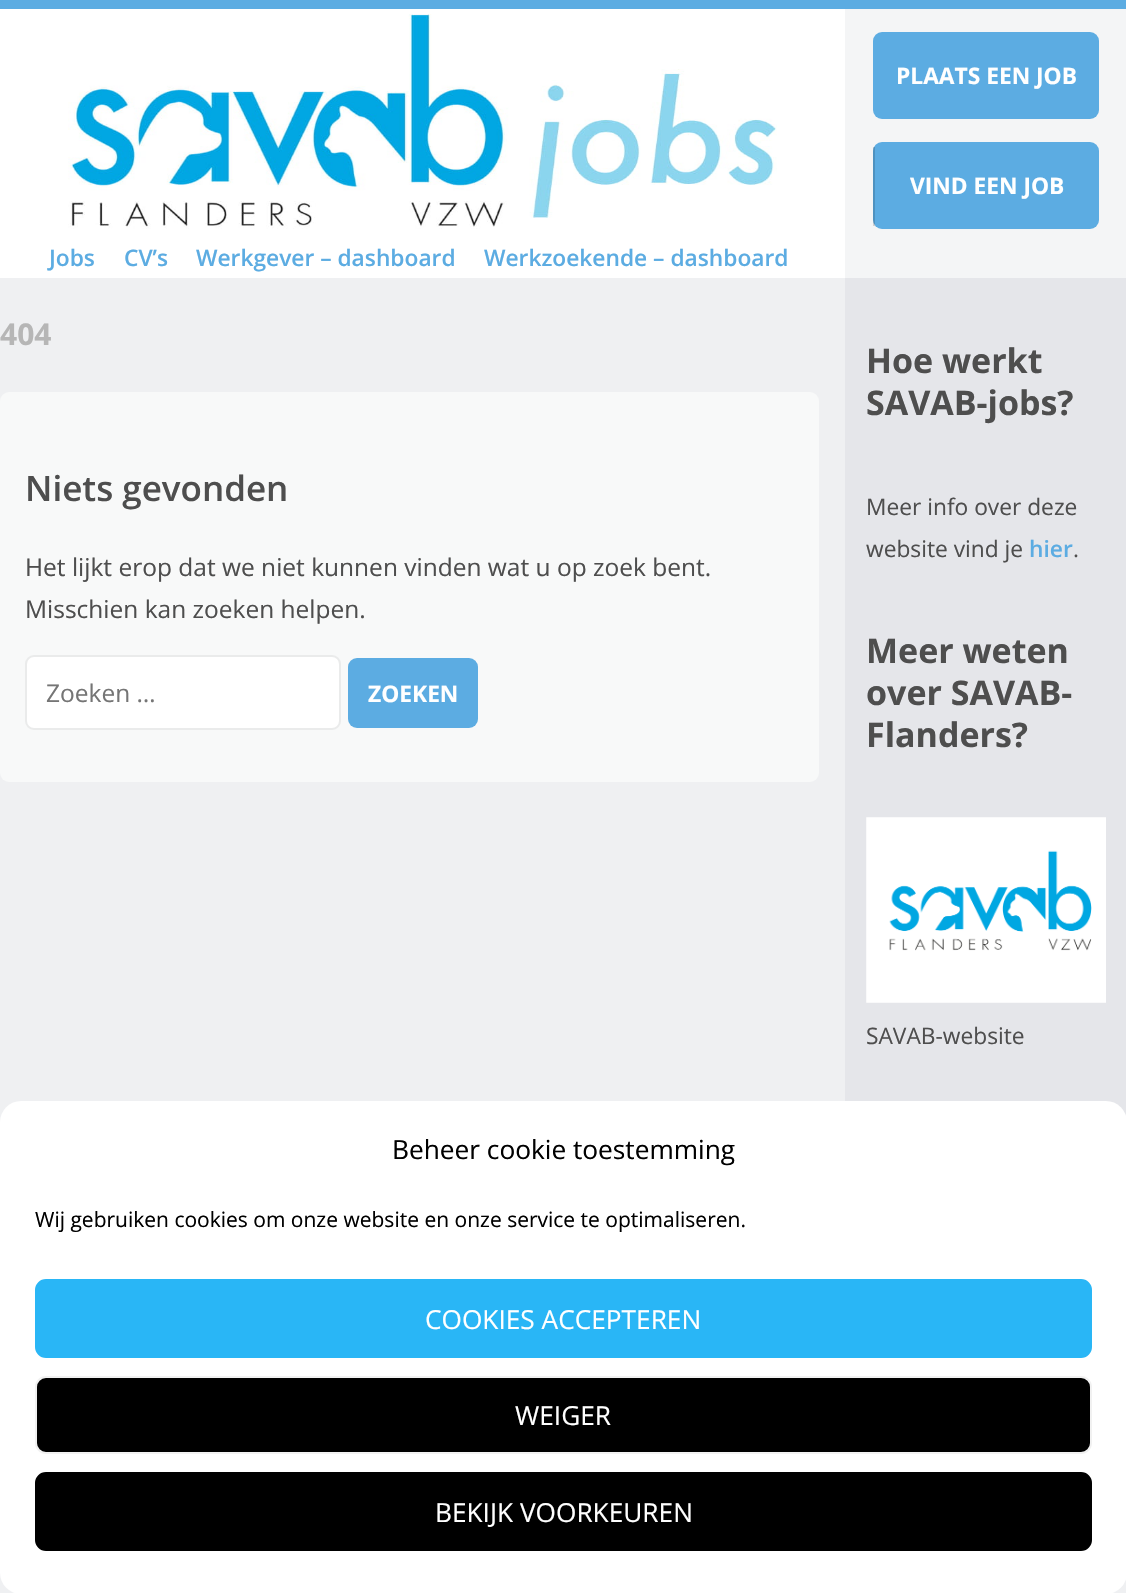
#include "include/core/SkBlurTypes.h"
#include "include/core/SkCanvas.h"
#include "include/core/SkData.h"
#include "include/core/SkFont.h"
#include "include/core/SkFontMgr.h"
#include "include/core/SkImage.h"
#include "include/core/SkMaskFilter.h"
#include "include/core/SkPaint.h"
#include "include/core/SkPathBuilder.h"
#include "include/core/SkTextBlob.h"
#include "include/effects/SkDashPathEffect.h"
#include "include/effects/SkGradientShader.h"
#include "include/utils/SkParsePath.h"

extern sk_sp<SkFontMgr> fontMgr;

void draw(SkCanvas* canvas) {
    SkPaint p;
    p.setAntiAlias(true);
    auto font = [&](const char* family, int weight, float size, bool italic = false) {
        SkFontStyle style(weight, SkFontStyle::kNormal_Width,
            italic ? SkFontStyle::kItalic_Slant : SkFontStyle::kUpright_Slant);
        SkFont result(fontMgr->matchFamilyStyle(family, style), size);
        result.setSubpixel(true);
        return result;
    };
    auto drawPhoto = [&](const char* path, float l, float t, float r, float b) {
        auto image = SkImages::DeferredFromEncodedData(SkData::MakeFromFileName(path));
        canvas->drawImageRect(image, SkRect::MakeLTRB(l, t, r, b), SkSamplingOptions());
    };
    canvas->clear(0xFFEFF0F2);
    {
        const struct { float l, t, r, b; SkColor color; } items[] = {
            {0, 0, 1126, 9, 0xFF5CACE2},
            {0, 9, 845, 278, 0xFFFFFFFF},
            {845, 9, 1126, 278, 0xFFF4F5F6},
        };
        for (auto [l, t, r, b, color] : items) {
            p.setColor(color);
            canvas->drawRect(SkRect::MakeLTRB(l, t, r, b), p);
        }
    }
    p.setColor(0xFF5CACE2);
    canvas->drawRoundRect(SkRect::MakeLTRB(873, 32, 1099, 119), 9, 9, p);
    auto font1 = font("Open Sans", 700, 22.75f);
    p.setColor(0xFFFFFFFF);
    canvas->drawString("PLAATS EEN JOB", 896, 84, font1, p);
    p.setColor(0xFF5CACE2);
    canvas->drawRoundRect(SkRect::MakeLTRB(873, 142, 1099, 229), 9, 9, p);
    p.setColor(0x26000000);
    canvas->drawRect(SkRect::MakeLTRB(873, 147, 875, 226), p);
    p.setColor(0xFFFFFFFF);
    canvas->drawString("VIND EEN JOB", 910, 194, font1, p);
    drawPhoto("media/1.png", 68, 9, 777, 229);
    auto font2 = font("Open Sans", 600, 22.75f);
    p.setColor(0xFF5CACE2);
    {
        const struct { const char* s; float x, y; } items[] = {
            {"Jobs", 49, 266},
            {"CV’s", 124, 266},
            {"Werkgever – dashboard", 196, 266},
            {"Werkzoekende – dashboard", 484, 266},
        };
        for (auto [s, x, y] : items) {
            canvas->drawString(s, x, y, font2, p);
        }
    }
    auto font3 = font("Open Sans", 700, 30);
    p.setColor(0xFFB6B6B6);
    canvas->drawString("404", 0, 345, font3, p);
    p.setColor(0xFFF8F9F9);
    canvas->drawRoundRect(SkRect::MakeLTRB(0, 392, 819, 782), 9, 9, p);
    auto font4 = font("Open Sans", 600, 35);
    p.setColor(0xFF4E4E4E);
    canvas->drawString("Niets gevonden", 25, 501, font4, p);
    auto font5 = font("Open Sans", 400, 24.5f);
    canvas->drawString("Het lijkt erop dat we niet kunnen vinden wat u op zoek bent.", 25, 576, font5, p);
    canvas->drawString("Misschien kan zoeken helpen.", 25, 618, font5, p);
    p.setColor(0xFFFFFFFF);
    canvas->drawRoundRect(SkRect::MakeLTRB(26, 656, 340, 729), 8, 8, p);
    p.setStyle(SkPaint::kStroke_Style);
    p.setStrokeWidth(2);
    p.setColor(0xFFEAEBEB);
    canvas->drawRoundRect(SkRect::MakeLTRB(26, 656, 340, 729), 8, 8, p);
    p.setStyle(SkPaint::kFill_Style);
    p.setColor(0xFF757575);
    canvas->drawString("Zoeken …", 46, 702, font5, p);
    p.setColor(0xFF5CACE2);
    canvas->drawRoundRect(SkRect::MakeLTRB(348, 658, 478, 728), 9, 9, p);
    p.setColor(0xFFFFFFFF);
    canvas->drawString("ZOEKEN", 368, 702, font1, p);
    p.setColor(0xFFE5E6EA);
    canvas->drawRect(SkRect::MakeLTRB(845, 278, 1126, 1116), p);
    auto font6 = font("Open Sans", 700, 34);
    p.setColor(0xFF4E4E4E);
    canvas->drawString("Hoe werkt", 866, 373, font6, p);
    canvas->drawString("SAVAB-jobs?", 866, 415, font6, p);
    auto font7 = font("Open Sans", 400, 22.75f);
    canvas->drawString("Meer info over deze", 866, 515, font7, p);
    canvas->drawString("website vind je", 866, 557, font7, p);
    p.setColor(0xFF5CACE2);
    canvas->drawString("hier", 1029, 557, font2, p);
    p.setColor(0xFF4E4E4E);
    canvas->drawString(".", 1073, 557, font7, p);
    {
        const struct { const char* s; float x, y; } items[] = {
            {"Meer weten", 866, 663},
            {"over SAVAB-", 866, 705},
            {"Flanders?", 866, 747},
        };
        for (auto [s, x, y] : items) {
            canvas->drawString(s, x, y, font6, p);
        }
    }
    drawPhoto("media/2.png", 866, 817, 1106, 1003);
    canvas->drawString("SAVAB-website", 866, 1044, font7, p);
    p.setColor(0xFFFFFFFF);
    canvas->drawRoundRect(SkRect::MakeLTRB(0, 1101, 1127, 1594), 21, 21, p);
    auto font8 = font("Open Sans", 400, 26.25f);
    p.setColor(0xFF000000);
    canvas->drawString("Beheer cookie toestemming", 392, 1159, font8, p);
    auto font9 = font("Open Sans", 400, 21);
    canvas->drawString("Wij gebruiken cookies om onze website en onze service te optimaliseren.", 35, 1227, font9, p);
    p.setColor(0xFF29B6F6);
    canvas->drawRoundRect(SkRect::MakeLTRB(36, 1280, 1091, 1357), 10, 10, p);
    p.setStyle(SkPaint::kStroke_Style);
    canvas->drawRoundRect(SkRect::MakeLTRB(36, 1280, 1091, 1357), 10, 10, p);
    p.setStyle(SkPaint::kFill_Style);
    p.setColor(0xFFFFFFFF);
    canvas->drawString("COOKIES ACCEPTEREN", 425, 1329, font8, p);
    p.setColor(0xFF000000);
    canvas->drawRoundRect(SkRect::MakeLTRB(36, 1377, 1091, 1453), 10, 10, p);
    p.setStyle(SkPaint::kStroke_Style);
    p.setColor(0xFFF1F1F1);
    canvas->drawRoundRect(SkRect::MakeLTRB(36, 1377, 1091, 1453), 10, 10, p);
    p.setStyle(SkPaint::kFill_Style);
    p.setColor(0xFFFFFFFF);
    canvas->drawString("WEIGER", 515, 1425, font8, p);
    p.setColor(0xFF000000);
    canvas->drawRoundRect(SkRect::MakeLTRB(36, 1473, 1091, 1550), 10, 10, p);
    p.setStyle(SkPaint::kStroke_Style);
    canvas->drawRoundRect(SkRect::MakeLTRB(36, 1473, 1091, 1550), 10, 10, p);
    p.setStyle(SkPaint::kFill_Style);
    p.setColor(0xFFFFFFFF);
    canvas->drawString("BEKIJK VOORKEUREN", 435, 1522, font8, p);
}
